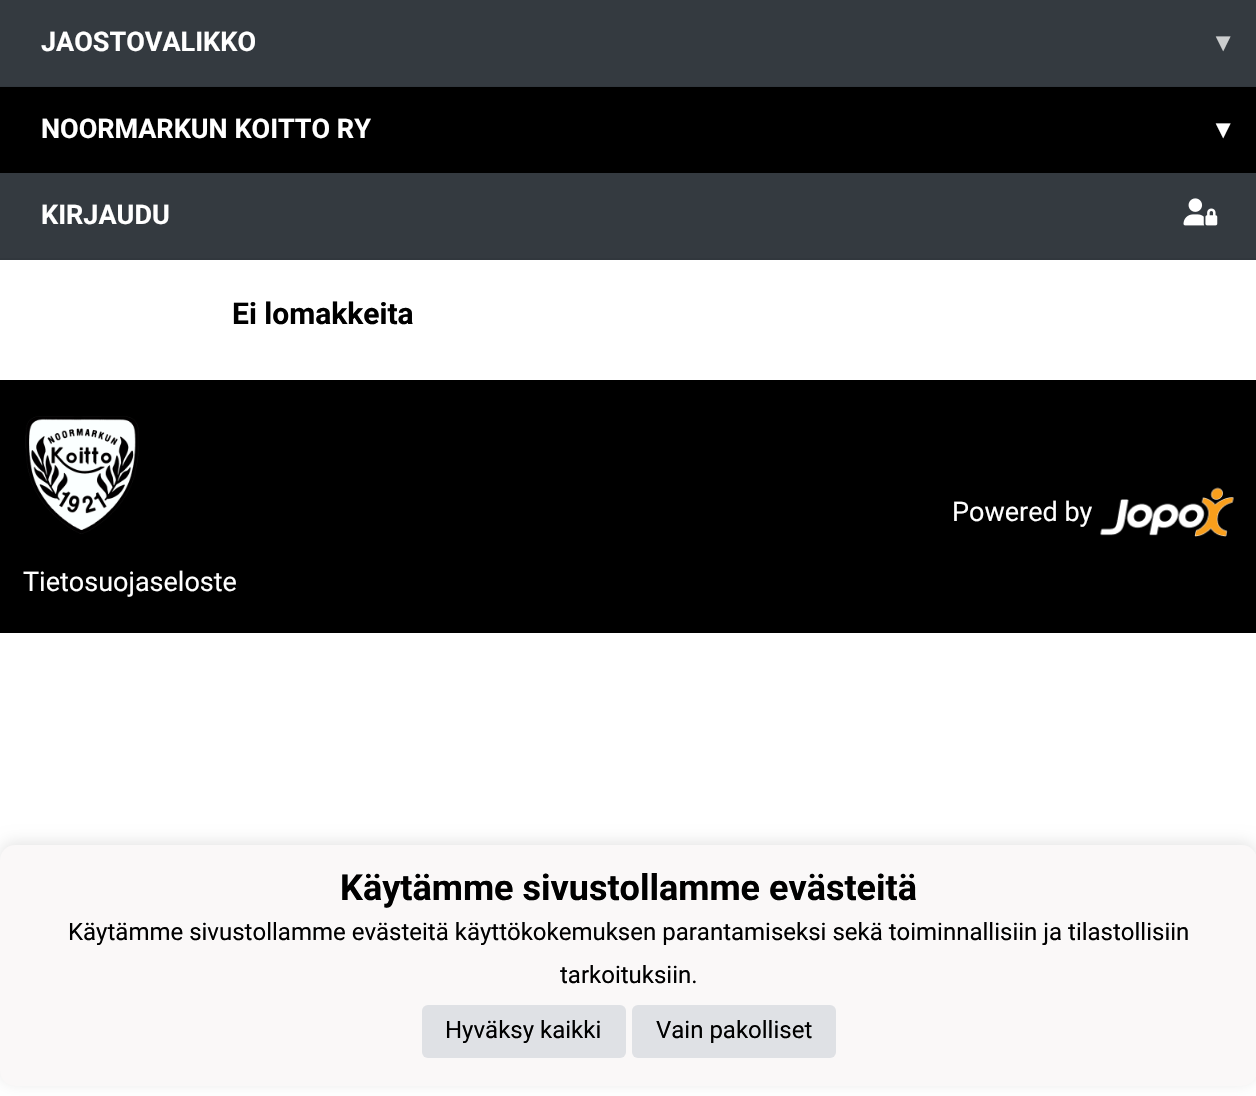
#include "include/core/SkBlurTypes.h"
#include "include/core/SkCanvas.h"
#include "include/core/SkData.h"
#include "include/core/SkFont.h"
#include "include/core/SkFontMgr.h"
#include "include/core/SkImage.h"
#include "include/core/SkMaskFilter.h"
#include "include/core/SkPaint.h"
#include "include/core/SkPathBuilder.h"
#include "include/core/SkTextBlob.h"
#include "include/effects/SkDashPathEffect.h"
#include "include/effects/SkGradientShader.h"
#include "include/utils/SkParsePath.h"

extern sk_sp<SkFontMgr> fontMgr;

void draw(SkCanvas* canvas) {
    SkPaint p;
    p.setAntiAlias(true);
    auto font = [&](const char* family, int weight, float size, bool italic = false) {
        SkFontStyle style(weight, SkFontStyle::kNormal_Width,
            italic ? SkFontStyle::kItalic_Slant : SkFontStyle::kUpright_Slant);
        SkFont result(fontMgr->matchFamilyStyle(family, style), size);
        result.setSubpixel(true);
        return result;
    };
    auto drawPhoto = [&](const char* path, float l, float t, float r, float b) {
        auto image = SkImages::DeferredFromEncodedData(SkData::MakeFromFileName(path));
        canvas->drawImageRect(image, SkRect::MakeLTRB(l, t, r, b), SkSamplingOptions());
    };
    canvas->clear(0xFFFFFFFF);
    p.setColor(0xFF343A40);
    canvas->drawRect(SkRect::MakeLTRB(0, 0, 1256, 86), p);
    p.setColor(0xFF31373D);
    canvas->drawRect(SkRect::MakeLTRB(0, 86, 1256, 87), p);
    auto font1 = font("Roboto", 700, 27);
    p.setColor(0xFFFFFFFF);
    canvas->drawString("JAOSTOVALIKKO", 41, 51, font1, p);
    auto font2 = font("DejaVu Sans", 700, 27);
    p.setColor(0xFFCCCECF);
    canvas->drawString("▾", 1216, 51, font2, p);
    p.setColor(0xFF000000);
    canvas->drawRect(SkRect::MakeLTRB(0, 87, 1256, 173), p);
    p.setColor(0xFFFFFFFF);
    canvas->drawString("NOORMARKUN KOITTO RY", 41, 138, font1, p);
    canvas->drawString("▾", 1216, 138, font2, p);
    p.setColor(0xFF343A40);
    canvas->drawRect(SkRect::MakeLTRB(0, 173, 1256, 258), p);
    p.setColor(0xFF31373D);
    canvas->drawRect(SkRect::MakeLTRB(0, 258, 1256, 260), p);
    p.setColor(0xFFFFFFFF);
    canvas->drawString("KIRJAUDU", 41, 224, font1, p);
    drawPhoto("media/1.png", 1183, 198, 1218, 226);
    auto font3 = font("Roboto", 700, 30);
    p.setColor(0xFF000000);
    canvas->drawString("Ei lomakkeita", 232, 324, font3, p);
    canvas->drawRect(SkRect::MakeLTRB(0, 380, 1256, 633), p);
    auto font4 = font("Roboto", 400, 27);
    p.setColor(0xFFFFFFFF);
    canvas->drawString("Powered by", 952, 521, font4, p);
    drawPhoto("media/2.png", 1100, 487, 1234, 537);
    drawPhoto("media/3.png", 25, 416, 139, 534);
    canvas->drawString("Tietosuojaseloste", 23, 591, font4, p);
    p.setColor(0x1A000000);
    p.setMaskFilter(SkMaskFilter::MakeBlur(kNormal_SkBlurStyle, 7.5f));
    canvas->drawRoundRect(SkRect::MakeLTRB(0, 842, 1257, 1083), 15, 15, p);
    p.setMaskFilter(nullptr);
    p.setColor(0xFFFAF8F8);
    canvas->drawRoundRect(SkRect::MakeLTRB(0, 845, 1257, 1086), 15, 15, p);
    auto font5 = font("Roboto", 700, 36);
    p.setColor(0xFF000000);
    canvas->drawString("Käytämme sivustollamme evästeitä", 340, 900, font5, p);
    auto font6 = font("Roboto", 400, 24);
    canvas->drawString("Käytämme sivustollamme evästeitä käyttökokemuksen parantamiseksi sekä toiminnallisiin ja tilastollisiin", 68, 940, font6, p);
    canvas->drawString("tarkoituksiin.", 560, 983, font6, p);
    p.setColor(0xFFDFE1E5);
    canvas->drawRoundRect(SkRect::MakeLTRB(422, 1005, 626, 1058), 6, 6, p);
    p.setColor(0xFF000000);
    canvas->drawString("Hyväksy kaikki", 445, 1038, font6, p);
    p.setColor(0xFFDFE1E5);
    canvas->drawRoundRect(SkRect::MakeLTRB(632, 1005, 836, 1058), 6, 6, p);
    p.setColor(0xFF000000);
    canvas->drawString("Vain pakolliset", 656, 1038, font6, p);
}
